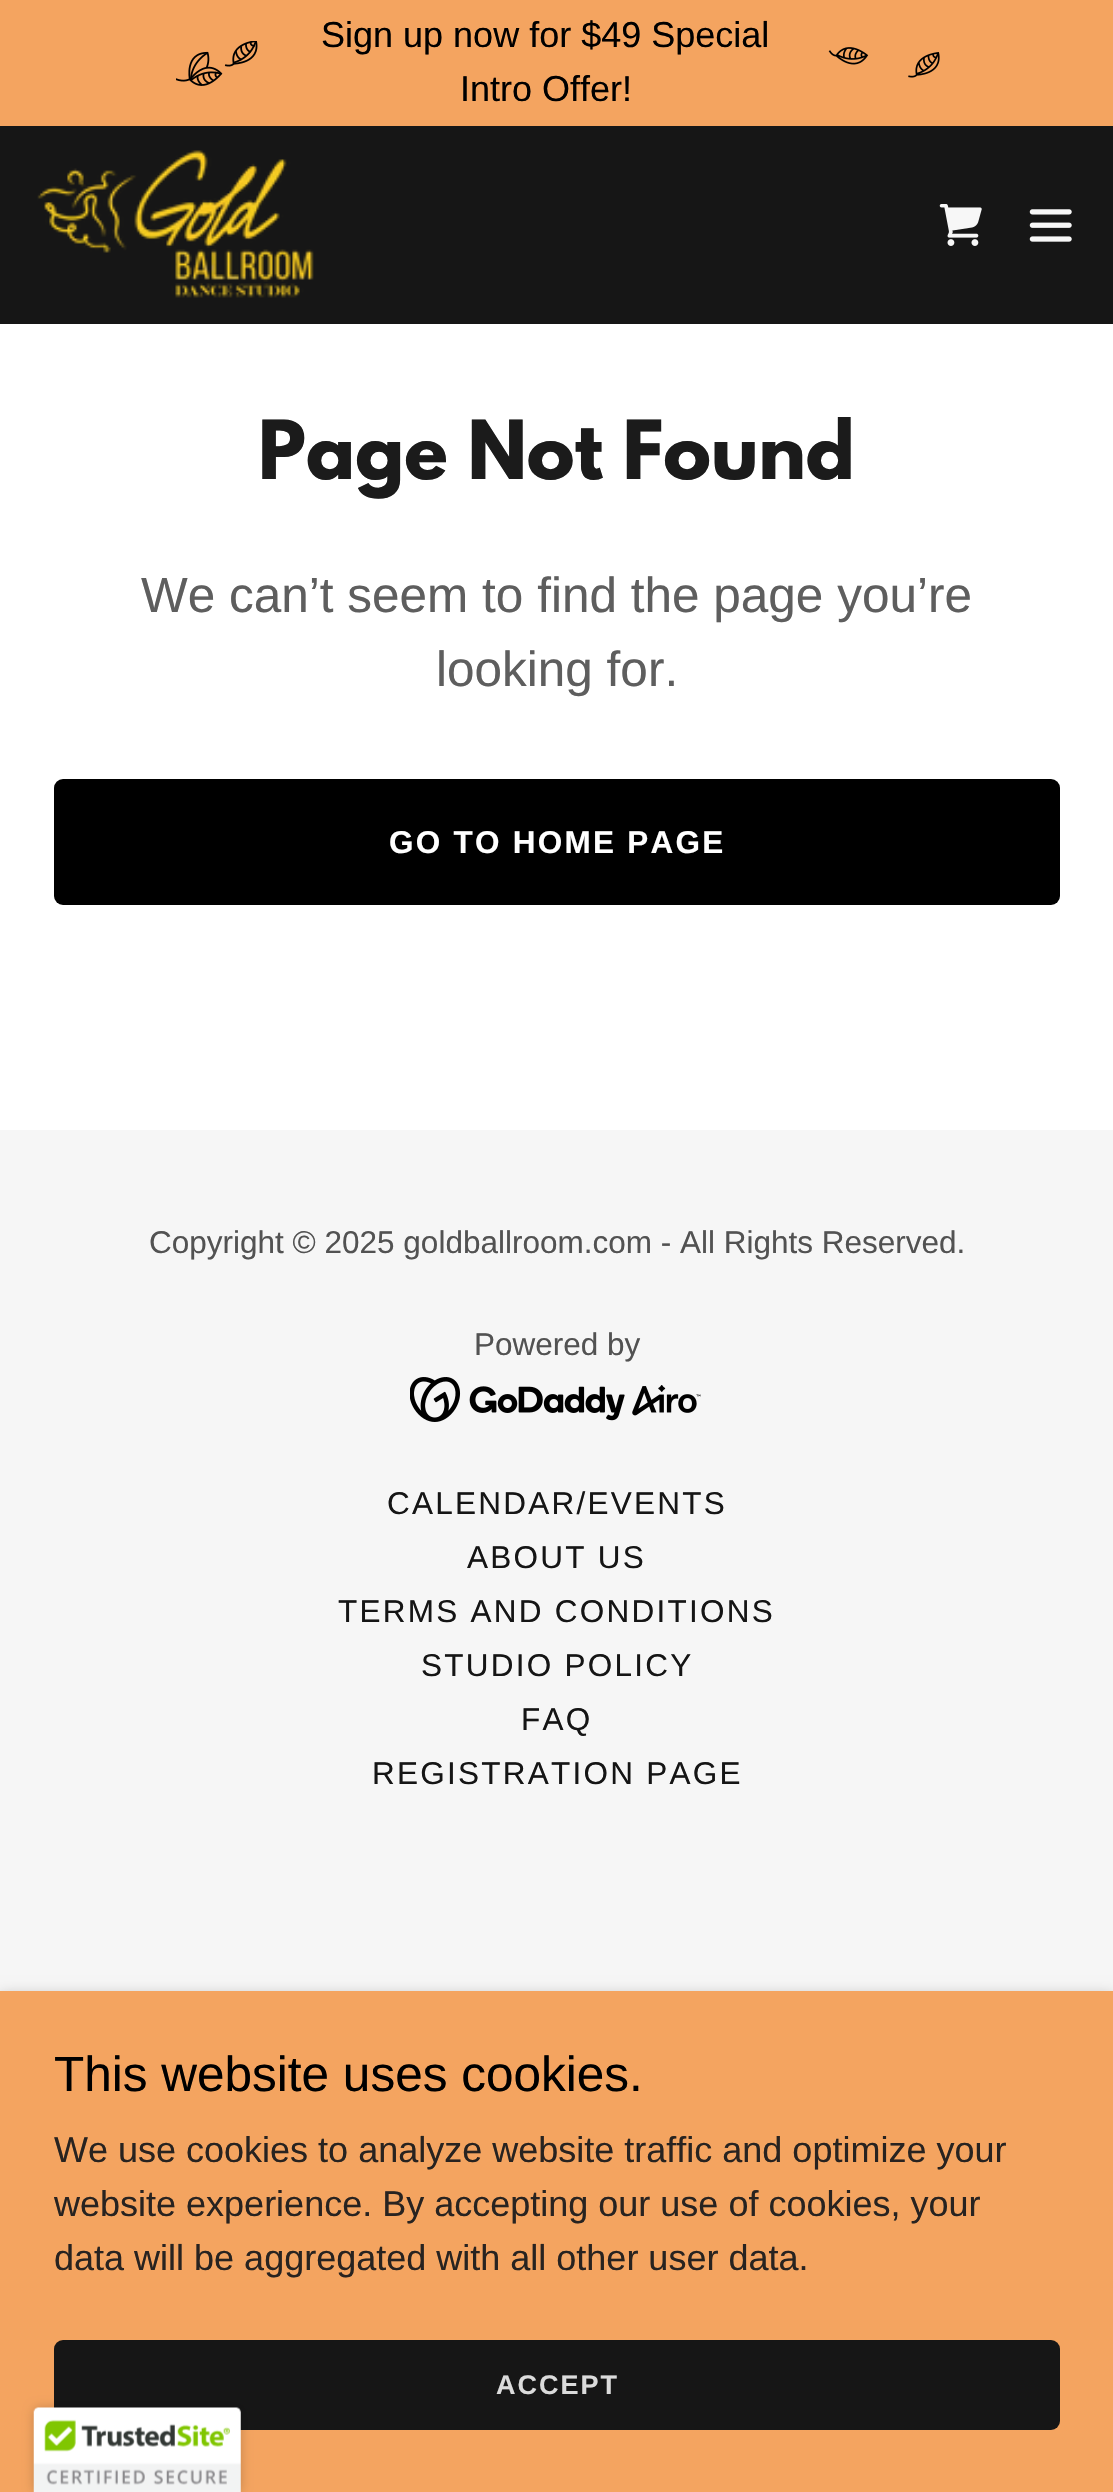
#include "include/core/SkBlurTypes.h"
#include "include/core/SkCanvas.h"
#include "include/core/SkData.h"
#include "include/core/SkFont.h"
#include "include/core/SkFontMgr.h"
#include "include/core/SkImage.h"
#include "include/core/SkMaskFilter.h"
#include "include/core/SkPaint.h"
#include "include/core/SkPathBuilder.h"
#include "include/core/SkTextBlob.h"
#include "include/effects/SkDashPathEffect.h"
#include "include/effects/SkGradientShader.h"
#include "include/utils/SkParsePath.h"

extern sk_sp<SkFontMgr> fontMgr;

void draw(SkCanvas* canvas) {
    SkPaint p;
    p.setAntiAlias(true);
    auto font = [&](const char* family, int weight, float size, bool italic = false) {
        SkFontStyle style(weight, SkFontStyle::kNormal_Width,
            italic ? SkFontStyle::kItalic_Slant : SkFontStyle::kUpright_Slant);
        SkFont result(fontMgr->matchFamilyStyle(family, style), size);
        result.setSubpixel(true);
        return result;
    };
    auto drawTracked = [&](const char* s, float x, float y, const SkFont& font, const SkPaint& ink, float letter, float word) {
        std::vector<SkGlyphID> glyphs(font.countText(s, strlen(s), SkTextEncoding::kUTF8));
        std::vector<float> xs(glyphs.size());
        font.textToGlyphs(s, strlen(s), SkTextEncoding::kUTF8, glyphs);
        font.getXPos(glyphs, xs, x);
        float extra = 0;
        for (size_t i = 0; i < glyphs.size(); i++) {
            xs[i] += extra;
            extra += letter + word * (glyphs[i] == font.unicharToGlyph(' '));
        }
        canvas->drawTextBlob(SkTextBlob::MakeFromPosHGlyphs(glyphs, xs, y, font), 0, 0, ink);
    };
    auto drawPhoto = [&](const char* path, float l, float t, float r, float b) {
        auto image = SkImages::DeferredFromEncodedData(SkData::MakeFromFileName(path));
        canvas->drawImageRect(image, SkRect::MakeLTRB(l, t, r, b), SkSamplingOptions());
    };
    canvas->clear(0xFFF6F6F6);
    p.setColor(0xFF161616);
    canvas->drawRect(SkRect::MakeLTRB(0, 126, 1113, 324), p);
    p.setColor(0xFFF4A460);
    canvas->drawRect(SkRect::MakeLTRB(0, 0, 1113, 126), p);
    drawPhoto("media/1.png", 176, 41, 258, 86);
    auto font1 = font("Liberation Sans", 400, 36);
    p.setColor(0xFF000000);
    canvas->drawString("Sign up now for $49 Special", 321, 47, font1, p);
    canvas->drawString("Intro Offer!", 460, 101, font1, p);
    drawPhoto("media/2.png", 828, 47, 940, 78);
    drawPhoto("media/3.png", 37, 150, 314, 298);
    drawPhoto("media/4.png", 939, 204, 982, 246);
    drawPhoto("media/5.png", 1029, 209, 1072, 242);
    p.setColor(0xFFFFFFFF);
    canvas->drawRect(SkRect::MakeLTRB(0, 324, 1113, 1130), p);
    auto font2 = font("League Spartan", 700, 72);
    p.setColor(0xFF1B1B1B);
    canvas->drawString("Page Not Found", 258, 479, font2, p);
    auto font3 = font("Liberation Sans", 400, 49.5f);
    p.setColor(0xFF5E5E5E);
    canvas->drawString("We can’t seem to find the page you’re", 141, 612, font3, p);
    canvas->drawString("looking for.", 436, 686, font3, p);
    p.setColor(0xFF000000);
    canvas->drawRoundRect(SkRect::MakeLTRB(54, 779, 1060, 905), 9, 9, p);
    auto font4 = font("Liberation Sans", 700, 31.5f);
    p.setColor(0xFFFFFFFF);
    drawTracked("GO TO HOME PAGE", 389, 853, font4, p, 2.25f, 0);
    auto font5 = font("Liberation Sans", 400, 31.5f);
    p.setColor(0xFF525252);
    canvas->drawString("Copyright © 2025 goldballroom.com - All Rights Reserved.", 149, 1253, font5, p);
    canvas->drawString("Powered by", 474, 1355, font5, p);
    drawPhoto("media/6.png", 410, 1377, 701, 1422);
    p.setColor(0xFF151515);
    {
        const struct { const char* s; float x, y; } items[] = {
            {"CALENDAR/EVENTS", 387, 1514},
            {"ABOUT US", 467, 1568},
            {"TERMS AND CONDITIONS", 338, 1622},
            {"STUDIO POLICY", 421, 1676},
            {"FAQ", 521, 1730},
            {"REGISTRATION PAGE", 372, 1784},
        };
        for (auto [s, x, y] : items) {
            drawTracked(s, x, y, font5, p, 2.25f, 0);
        }
    }
    p.setColor(0x4D000000);
    p.setMaskFilter(SkMaskFilter::MakeBlur(kNormal_SkBlurStyle, 7));
    canvas->drawRect(SkRect::MakeLTRB(0, 1996, 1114, 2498), p);
    p.setMaskFilter(nullptr);
    p.setColor(0xFFF4A460);
    canvas->drawRect(SkRect::MakeLTRB(0, 1991, 1113, 2492), p);
    p.setColor(0xFF000000);
    canvas->drawString("This website uses cookies.", 54, 2091, font3, p);
    p.setColor(0xFF282320);
    {
        const struct { const char* s; float x, y; } items[] = {
            {"We use cookies to analyze website traffic and optimize your", 54, 2162},
            {"website experience. By accepting our use of cookies, your", 54, 2216},
            {"data will be aggregated with all other user data.", 54, 2270},
        };
        for (auto [s, x, y] : items) {
            canvas->drawString(s, x, y, font1, p);
        }
    }
    p.setColor(0xFF161616);
    canvas->drawRoundRect(SkRect::MakeLTRB(54, 2340, 1060, 2430), 9, 9, p);
    auto font6 = font("Liberation Sans", 700, 27);
    p.setColor(0xFFDBDBDB);
    drawTracked("ACCEPT", 496, 2394, font6, p, 2, 0);
    p.setColor(0x33000000);
    p.setMaskFilter(SkMaskFilter::MakeBlur(kNormal_SkBlurStyle, 5.5f));
    canvas->drawRoundRect(SkRect::MakeLTRB(34, 2408, 241, 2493), 5, 5, p);
    p.setMaskFilter(nullptr);
    drawPhoto("media/7.png", 33, 2407, 241, 2492);
}
